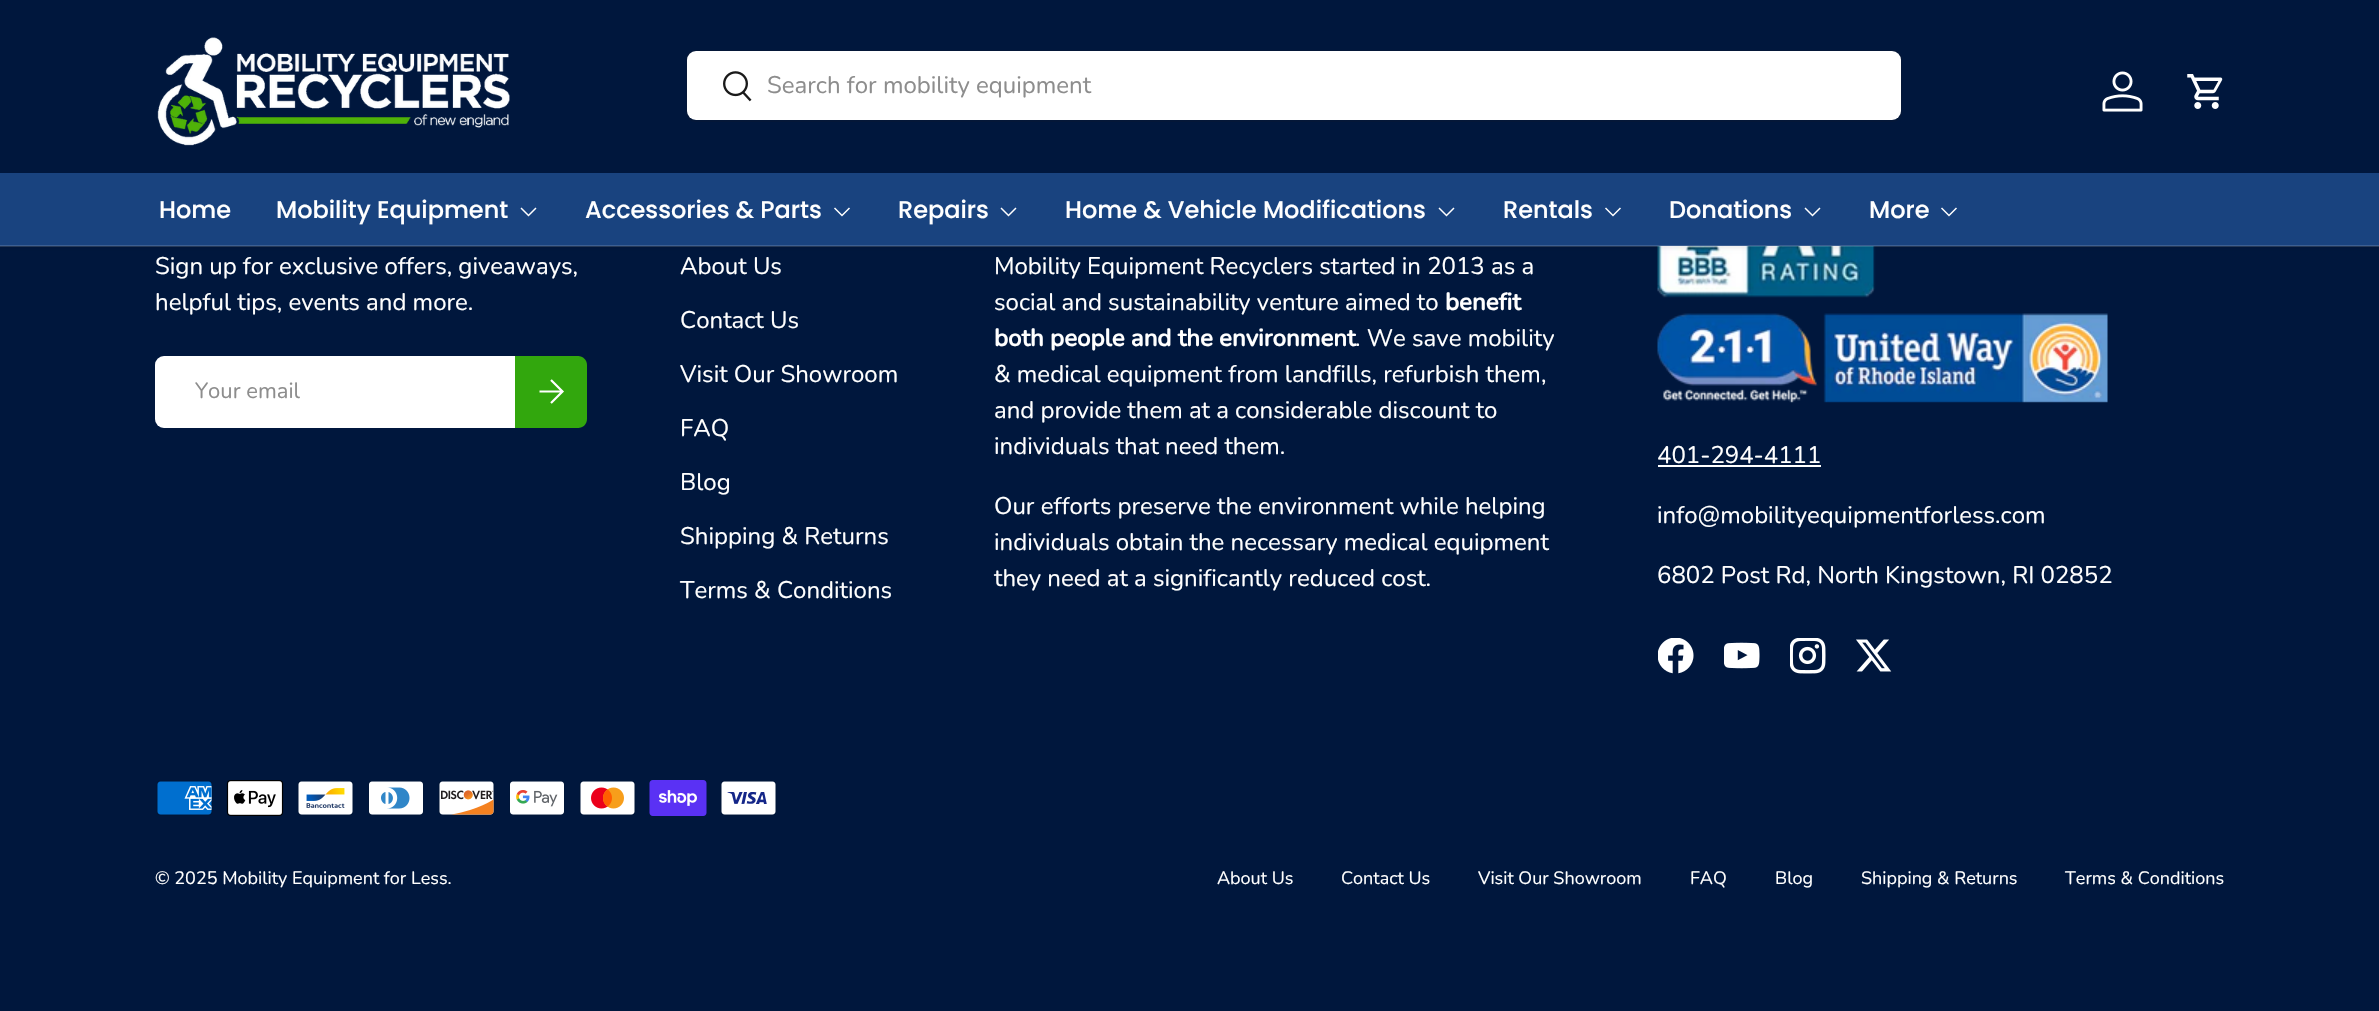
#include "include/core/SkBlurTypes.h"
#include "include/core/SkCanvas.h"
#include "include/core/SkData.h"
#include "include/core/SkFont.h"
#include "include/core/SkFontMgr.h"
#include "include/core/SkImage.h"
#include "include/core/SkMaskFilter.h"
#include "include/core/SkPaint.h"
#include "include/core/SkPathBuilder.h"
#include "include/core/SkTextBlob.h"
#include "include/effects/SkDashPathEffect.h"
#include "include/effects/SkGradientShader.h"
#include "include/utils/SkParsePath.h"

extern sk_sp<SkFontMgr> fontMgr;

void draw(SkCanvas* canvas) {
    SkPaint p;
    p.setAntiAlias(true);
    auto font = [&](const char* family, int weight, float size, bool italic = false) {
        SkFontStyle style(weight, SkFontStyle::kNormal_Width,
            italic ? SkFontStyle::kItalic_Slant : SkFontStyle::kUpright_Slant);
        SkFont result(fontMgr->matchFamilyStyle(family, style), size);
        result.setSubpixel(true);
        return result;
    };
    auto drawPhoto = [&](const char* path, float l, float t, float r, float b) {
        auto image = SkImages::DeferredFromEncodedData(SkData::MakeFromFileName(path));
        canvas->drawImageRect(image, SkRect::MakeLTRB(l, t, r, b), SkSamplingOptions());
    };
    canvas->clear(0xFF00173D);
    drawPhoto("media/5.png", 1657, 246, 2108, 403);
    p.setColor(0x14000000);
    p.setMaskFilter(SkMaskFilter::MakeBlur(kNormal_SkBlurStyle, 2));
    canvas->drawRect(SkRect::MakeLTRB(-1, -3, 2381, 248), p);
    p.setMaskFilter(nullptr);
    p.setColor(0xFF00173D);
    canvas->drawRect(SkRect::MakeLTRB(0, 0, 2379, 173), p);
    drawPhoto("media/1.png", 157, 37, 510, 146);
    p.setStyle(SkPaint::kStroke_Style);
    p.setStrokeWidth(2);
    p.setColor(0xFF041738);
    canvas->drawRoundRect(SkRect::MakeLTRB(687, 51, 1901, 121), 8, 8, p);
    p.setStyle(SkPaint::kFill_Style);
    p.setColor(0xFFFFFFFF);
    canvas->drawRoundRect(SkRect::MakeLTRB(687, 51, 1901, 120), 9, 9, p);
    drawPhoto("media/2.png", 723, 71, 752, 102);
    auto font1 = font("Nunito", 400, 24);
    p.setColor(0xFF8D8D8D);
    canvas->drawString("Search for mobility equipment", 767, 93, font1, p);
    drawPhoto("media/3.png", 2102, 71, 2143, 112);
    drawPhoto("media/4.png", 2187, 74, 2223, 109);
    p.setColor(0xFF19437F);
    canvas->drawRect(SkRect::MakeLTRB(0, 173, 2379, 246), p);
    auto font2 = font("Poppins", 500, 24);
    p.setColor(0xFFFFFFFF);
    canvas->drawString("Home", 159, 218, font2, p);
    canvas->drawString("Mobility Equipment", 276, 218, font2, p);
    p.setStyle(SkPaint::kStroke_Style);
    p.setStrokeWidth(1.5f);
    canvas->drawPath(SkPathBuilder().moveTo(536, 208).lineTo(528.5f, 215.5f).lineTo(521, 208).detach(), p);
    p.setStyle(SkPaint::kFill_Style);
    canvas->drawString("Accessories & Parts", 585, 218, font2, p);
    p.setStyle(SkPaint::kStroke_Style);
    canvas->drawPath(SkPathBuilder().moveTo(849.5f, 208).lineTo(842, 215.5f).lineTo(834.5f, 208).detach(), p);
    p.setStyle(SkPaint::kFill_Style);
    canvas->drawString("Repairs", 898, 218, font2, p);
    p.setStyle(SkPaint::kStroke_Style);
    canvas->drawPath(SkPathBuilder().moveTo(1016, 208).lineTo(1008.5f, 215.5f).lineTo(1001, 208).detach(), p);
    p.setStyle(SkPaint::kFill_Style);
    canvas->drawString("Home & Vehicle Modifications", 1065, 218, font2, p);
    p.setStyle(SkPaint::kStroke_Style);
    canvas->drawPath(SkPathBuilder().moveTo(1454, 208).lineTo(1446.5f, 215.5f).lineTo(1439, 208).detach(), p);
    p.setStyle(SkPaint::kFill_Style);
    canvas->drawString("Rentals", 1503, 218, font2, p);
    p.setStyle(SkPaint::kStroke_Style);
    canvas->drawPath(SkPathBuilder().moveTo(1620.5f, 208).lineTo(1613, 215.5f).lineTo(1605.5f, 208).detach(), p);
    p.setStyle(SkPaint::kFill_Style);
    canvas->drawString("Donations", 1669, 218, font2, p);
    p.setStyle(SkPaint::kStroke_Style);
    canvas->drawPath(SkPathBuilder().moveTo(1820, 208).lineTo(1812.5f, 215.5f).lineTo(1805, 208).detach(), p);
    p.setStyle(SkPaint::kFill_Style);
    canvas->drawString("More", 1869, 218, font2, p);
    p.setStyle(SkPaint::kStroke_Style);
    canvas->drawPath(SkPathBuilder().moveTo(1956.5f, 208).lineTo(1949, 215.5f).lineTo(1941.5f, 208).detach(), p);
    p.setStyle(SkPaint::kFill_Style);
    p.setColor(0x26FFFFFF);
    canvas->drawRect(SkRect::MakeLTRB(0, 245, 2379, 247), p);
    p.setColor(0xFFFFFFFF);
    canvas->drawString("Sign up for exclusive offers, giveaways,", 155, 274, font1, p);
    canvas->drawString("helpful tips, events and more.", 155, 310, font1, p);
    canvas->drawRoundRect(SkRect::MakeLTRB(155, 356, 584, 428), 9, 9, p);
    p.setStyle(SkPaint::kStroke_Style);
    p.setStrokeWidth(3);
    p.setColor(0x33FFFFFF);
    canvas->drawRoundRect(SkRect::MakeLTRB(156.5f, 357.5f, 582.5f, 426.5f), 7.5f, 7.5f, p);
    auto font3 = font("Nunito", 400, 22);
    p.setStyle(SkPaint::kFill_Style);
    p.setColor(0xFF8D8D8D);
    canvas->drawString("Your email", 195, 398, font3, p);
    {
        const SkColor colors[] = {0xFF56C034, 0xFF32A70D, 0xFF32A70D};
        const float stops[] = {0.6f, 0.6f, 1};
        const SkPoint ends[] = {{368, 364}, {589, 419}};
        p.setShader(SkGradientShader::MakeLinear(ends, colors, stops, 3, SkTileMode::kClamp));
        p.setAlpha(255);
    }
    canvas->drawPath(SkPathBuilder().moveTo(515, 356).lineTo(578, 356).cubicTo(583, 356, 587, 360, 587, 365).lineTo(587, 419).cubicTo(587, 424, 583, 428, 578, 428).lineTo(515, 428).close().detach(), p);
    p.setStyle(SkPaint::kStroke_Style);
    p.setStrokeWidth(2.2f);
    p.setShader(nullptr);
    p.setColor(0xFFFFFFFF);
    canvas->drawPath(SkPathBuilder().moveTo(539.5f, 391.5f).lineTo(561.5f, 391.5f).moveTo(551, 380).lineTo(562.5f, 391.5f).lineTo(551, 403).detach(), p);
    p.setStyle(SkPaint::kFill_Style);
    {
        const struct { const char* s; float x, y; } items[] = {
            {"About Us", 680, 274},
            {"Contact Us", 680, 328},
            {"Visit Our Showroom", 680, 382},
            {"FAQ", 680, 436},
            {"Blog", 680, 490},
            {"Shipping & Returns", 680, 544},
            {"Terms & Conditions", 680, 598},
            {"Mobility Equipment Recyclers started in 2013 as a", 994, 274},
            {"social and sustainability venture aimed to", 994, 310},
        };
        for (auto [s, x, y] : items) {
            canvas->drawString(s, x, y, font1, p);
        }
    }
    auto font4 = font("Nunito", 700, 24);
    canvas->drawString("benefit", 1445, 310, font4, p);
    canvas->drawString("both people and the environment", 994, 346, font4, p);
    {
        const struct { const char* s; float x, y; } items[] = {
            {". We save mobility", 1355, 346},
            {"& medical equipment from landfills, refurbish them,", 994, 382},
            {"and provide them at a considerable discount to", 994, 418},
            {"individuals that need them.", 994, 454},
            {"Our efforts preserve the environment while helping", 994, 514},
            {"individuals obtain the necessary medical equipment", 994, 550},
            {"they need at a significantly reduced cost.", 994, 586},
            {"401-294-4111", 1657, 463},
        };
        for (auto [s, x, y] : items) {
            canvas->drawString(s, x, y, font1, p);
        }
    }
    canvas->drawRect(SkRect::MakeLTRB(1658, 465, 1821, 467), p);
    canvas->drawString("info@mobilityequipmentforless.com", 1657, 523, font1, p);
    canvas->drawString("6802 Post Rd, North Kingstown, RI 02852", 1657, 583, font1, p);
    drawPhoto("media/6.png", 1658, 638, 1694, 674);
    drawPhoto("media/7.png", 1724, 642, 1760, 669);
    drawPhoto("media/8.png", 1790, 638, 1826, 674);
    drawPhoto("media/9.png", 1856, 639, 1892, 672);
    drawPhoto("media/10.png", 156, 780, 213, 816);
    drawPhoto("media/11.png", 226, 780, 284, 816);
    drawPhoto("media/12.png", 297, 780, 354, 816);
    drawPhoto("media/13.png", 368, 780, 424, 816);
    drawPhoto("media/14.png", 438, 780, 495, 816);
    drawPhoto("media/15.png", 509, 780, 565, 816);
    drawPhoto("media/16.png", 579, 780, 636, 816);
    drawPhoto("media/17.png", 649, 780, 707, 816);
    drawPhoto("media/18.png", 720, 780, 777, 816);
    auto font5 = font("Nunito", 400, 18);
    {
        const struct { const char* s; float x, y; } items[] = {
            {"© 2025 Mobility Equipment for Less.", 155, 884},
            {"About Us", 1217, 884},
            {"Contact Us", 1341, 884},
            {"Visit Our Showroom", 1478, 884},
            {"FAQ", 1690, 884},
            {"Blog", 1775, 884},
            {"Shipping & Returns", 1861, 884},
            {"Terms & Conditions", 2065, 884},
        };
        for (auto [s, x, y] : items) {
            canvas->drawString(s, x, y, font5, p);
        }
    }
}
